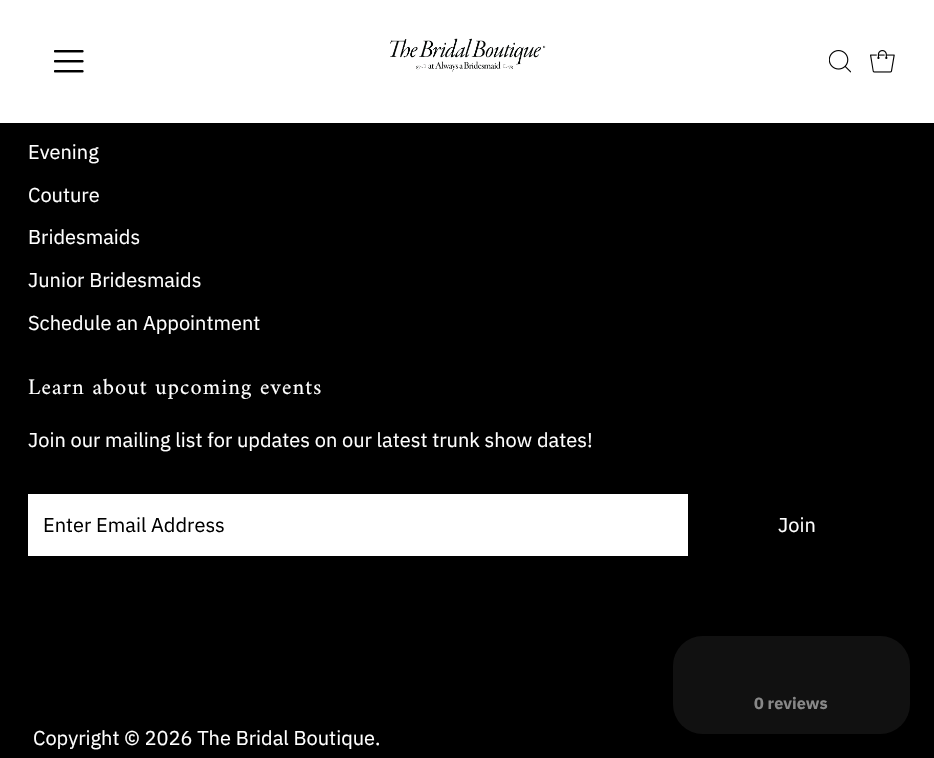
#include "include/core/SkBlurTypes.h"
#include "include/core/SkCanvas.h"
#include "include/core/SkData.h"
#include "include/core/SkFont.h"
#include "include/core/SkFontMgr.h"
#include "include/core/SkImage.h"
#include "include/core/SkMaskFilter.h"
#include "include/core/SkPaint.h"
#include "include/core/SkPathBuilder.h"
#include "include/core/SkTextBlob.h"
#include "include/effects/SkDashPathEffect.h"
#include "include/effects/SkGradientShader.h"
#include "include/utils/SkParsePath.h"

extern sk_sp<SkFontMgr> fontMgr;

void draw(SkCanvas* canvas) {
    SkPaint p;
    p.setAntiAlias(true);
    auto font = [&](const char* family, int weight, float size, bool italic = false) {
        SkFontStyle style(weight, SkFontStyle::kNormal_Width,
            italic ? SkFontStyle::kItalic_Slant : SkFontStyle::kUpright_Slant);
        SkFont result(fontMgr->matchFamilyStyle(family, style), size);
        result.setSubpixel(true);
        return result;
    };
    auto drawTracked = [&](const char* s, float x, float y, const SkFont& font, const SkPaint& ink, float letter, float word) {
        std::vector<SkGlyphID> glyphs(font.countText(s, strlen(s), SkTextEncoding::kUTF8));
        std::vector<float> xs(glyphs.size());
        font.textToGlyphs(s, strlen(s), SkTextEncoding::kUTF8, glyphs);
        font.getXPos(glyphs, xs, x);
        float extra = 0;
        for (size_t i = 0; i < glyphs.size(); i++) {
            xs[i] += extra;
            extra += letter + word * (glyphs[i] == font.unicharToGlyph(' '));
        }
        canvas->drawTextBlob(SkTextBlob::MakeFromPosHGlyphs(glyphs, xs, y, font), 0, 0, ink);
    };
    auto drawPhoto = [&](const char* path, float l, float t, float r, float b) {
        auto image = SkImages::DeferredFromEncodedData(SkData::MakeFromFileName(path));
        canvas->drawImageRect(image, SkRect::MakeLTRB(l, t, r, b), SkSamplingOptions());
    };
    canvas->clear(0xFF000000);
    p.setColor(0xFFFFFFFF);
    canvas->drawRect(SkRect::MakeLTRB(0, 0, 934, 123), p);
    drawPhoto("media/1.png", 54, 50, 84, 73);
    drawPhoto("media/2.png", 390, 38, 546, 72);
    drawPhoto("media/3.png", 829, 50, 851, 73);
    drawPhoto("media/4.png", 870, 50, 895, 73);
    auto font1 = font("IBM Plex Sans", 400, 20);
    {
        const struct { const char* s; float x, y; } items[] = {
            {"Evening", 28, 159},
            {"Couture", 28, 202},
            {"Bridesmaids", 28, 244},
            {"Junior Bridesmaids", 28, 287},
            {"Schedule an Appointment", 28, 330},
        };
        for (auto [s, x, y] : items) {
            canvas->drawString(s, x, y, font1, p);
        }
    }
    auto font2 = font("Amiri", 400, 22.5f);
    drawTracked("Learn about upcoming events", 28, 394, font2, p, 1.1f, 0);
    canvas->drawString("Join our mailing list for updates on our latest trunk show dates!", 28, 447, font1, p);
    canvas->drawRect(SkRect::MakeLTRB(28, 494, 688, 556), p);
    p.setColor(0xFF000000);
    canvas->drawString("Enter Email Address", 43, 532, font1, p);
    p.setColor(0xFFFFFFFF);
    canvas->drawString("Join", 778, 532, font1, p);
    canvas->drawString("Copyright © 2026 The Bridal Boutique.", 33, 745, font1, p);
    p.setColor(0xFF111111);
    canvas->drawRoundRect(SkRect::MakeLTRB(673, 636, 910, 734), 30, 30, p);
    auto font3 = font("IBM Plex Sans", 700, 16.25f);
    p.setColor(0xFF888888);
    canvas->drawString("0 reviews", 754, 709, font3, p);
}
